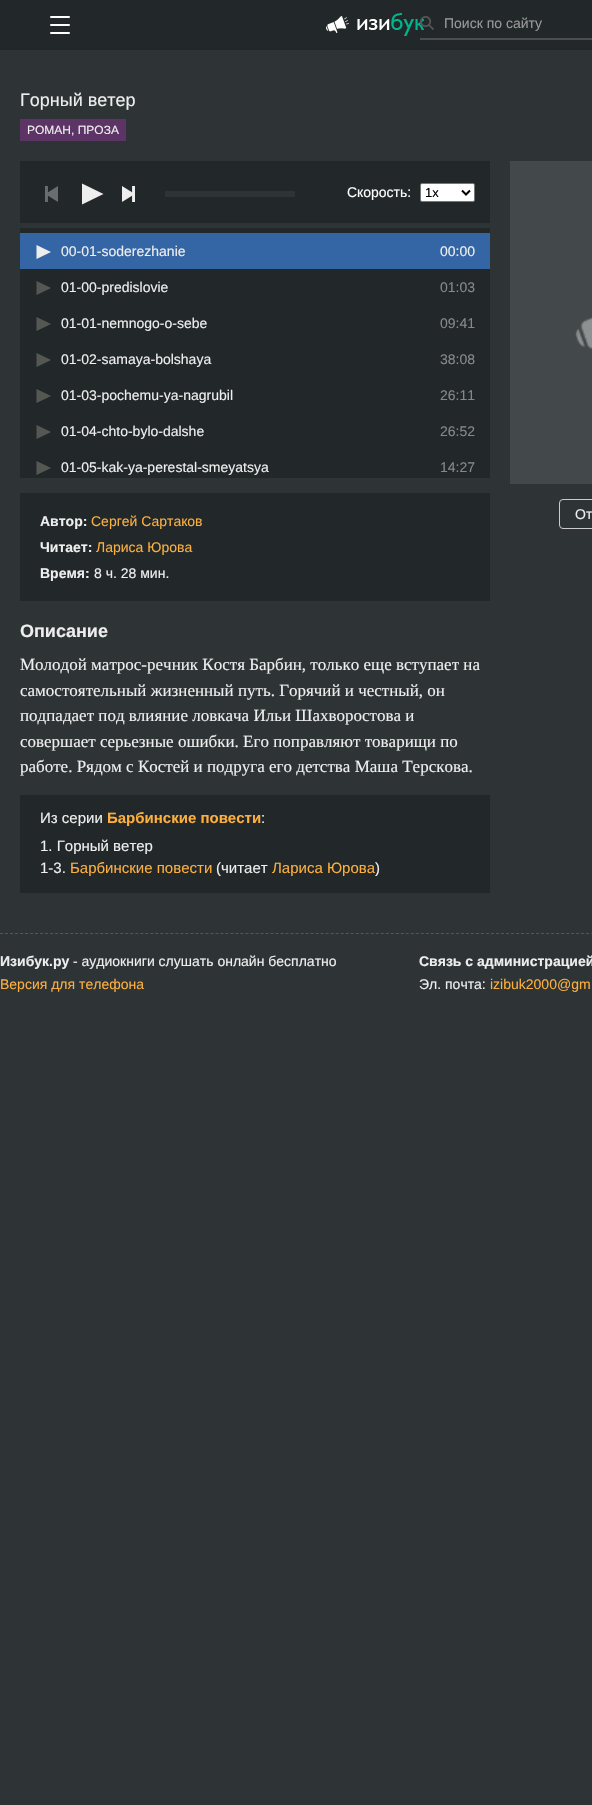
#include "include/core/SkBlurTypes.h"
#include "include/core/SkCanvas.h"
#include "include/core/SkData.h"
#include "include/core/SkFont.h"
#include "include/core/SkFontMgr.h"
#include "include/core/SkImage.h"
#include "include/core/SkMaskFilter.h"
#include "include/core/SkPaint.h"
#include "include/core/SkPathBuilder.h"
#include "include/core/SkTextBlob.h"
#include "include/effects/SkDashPathEffect.h"
#include "include/effects/SkGradientShader.h"
#include "include/utils/SkParsePath.h"

extern sk_sp<SkFontMgr> fontMgr;

void draw(SkCanvas* canvas) {
    SkPaint p;
    p.setAntiAlias(true);
    auto font = [&](const char* family, int weight, float size, bool italic = false) {
        SkFontStyle style(weight, SkFontStyle::kNormal_Width,
            italic ? SkFontStyle::kItalic_Slant : SkFontStyle::kUpright_Slant);
        SkFont result(fontMgr->matchFamilyStyle(family, style), size);
        result.setSubpixel(true);
        return result;
    };
    auto drawPhoto = [&](const char* path, float l, float t, float r, float b) {
        auto image = SkImages::DeferredFromEncodedData(SkData::MakeFromFileName(path));
        canvas->drawImageRect(image, SkRect::MakeLTRB(l, t, r, b), SkSamplingOptions());
    };
    canvas->clear(0xFF2E3436);
    p.setColor(0xFF22282A);
    canvas->drawRect(SkRect::MakeLTRB(0, 0, 592, 50), p);
    p.setColor(0xFFFFFFFF);
    canvas->drawRoundRect(SkRect::MakeLTRB(50, 16, 70, 18), 1, 1, p);
    canvas->drawRoundRect(SkRect::MakeLTRB(50, 24, 70, 26), 1, 1, p);
    canvas->drawRoundRect(SkRect::MakeLTRB(50, 32, 70, 34), 1, 1, p);
    drawPhoto("media/1.png", 326, 13, 424, 36);
    drawPhoto("media/2.png", 420, 16, 434, 30);
    p.setColor(0xFF4C4E4E);
    canvas->drawRect(SkRect::MakeLTRB(420, 38, 592, 40), p);
    auto font1 = font("Liberation Sans", 400, 14);
    p.setColor(0xFF999999);
    canvas->drawString("Поиск по сайту", 444, 28, font1, p);
    auto font2 = font("Liberation Sans", 400, 18);
    p.setColor(0xFFEEEEEE);
    canvas->drawString("Горный ветер", 20, 106, font2, p);
    p.setColor(0xFF5C3566);
    canvas->drawRect(SkRect::MakeLTRB(20, 119, 126, 141), p);
    auto font3 = font("Liberation Sans", 400, 12);
    p.setColor(0xFFEEEEEE);
    canvas->drawString("РОМАН, ПРОЗА", 27, 134, font3, p);
    p.setColor(0xFF22282A);
    canvas->drawRect(SkRect::MakeLTRB(20, 161, 490, 478), p);
    p.setColor(0xFF2E3436);
    canvas->drawRect(SkRect::MakeLTRB(20, 223, 490, 228), p);
    drawPhoto("media/3.png", 45, 186, 58, 202);
    p.setColor(0xFFEEEEEE);
    canvas->drawPath(SkPathBuilder().moveTo(82, 183.5f).lineTo(82, 204.5f).lineTo(103.5f, 194).close().detach(), p);
    drawPhoto("media/4.png", 122, 186, 135, 202);
    p.setColor(0xFF2E3436);
    canvas->drawRect(SkRect::MakeLTRB(165, 191, 295, 197), p);
    p.setColor(0xFFFFFFFF);
    canvas->drawString("Скорость:", 347, 197, font1, p);
    canvas->drawRoundRect(SkRect::MakeLTRB(420.5f, 183.5f, 474.5f, 201.5f), 1.5f, 1.5f, p);
    p.setStyle(SkPaint::kStroke_Style);
    p.setStrokeWidth(1);
    p.setColor(0xFF767676);
    canvas->drawRoundRect(SkRect::MakeLTRB(420.5f, 183.5f, 474.5f, 201.5f), 1.5f, 1.5f, p);
    p.setStrokeWidth(2);
    p.setColor(0xFF000000);
    canvas->drawPath(SkPathBuilder().moveTo(462, 190.5f).lineTo(466, 194.5f).lineTo(470, 190.5f).detach(), p);
    auto font4 = font("Liberation Sans", 400, 13);
    p.setStyle(SkPaint::kFill_Style);
    canvas->drawString("1x", 425, 197, font4, p);
    p.setColor(0xFF3465A4);
    canvas->drawRect(SkRect::MakeLTRB(20, 233, 490, 269), p);
    p.setColor(0xFFEEEEEE);
    canvas->drawPath(SkPathBuilder().moveTo(36.5f, 245).lineTo(36.5f, 259).lineTo(51, 252).close().detach(), p);
    canvas->drawString("00-01-soderezhanie", 61, 256, font1, p);
    canvas->drawString("00:00", 440, 256, font1, p);
    p.setColor(0xFF555753);
    canvas->drawPath(SkPathBuilder().moveTo(36.5f, 281).lineTo(36.5f, 295).lineTo(51, 288).close().moveTo(36.5f, 317).lineTo(36.5f, 331).lineTo(51, 324).close().detach(), p);
    p.setColor(0xFFEEEEEE);
    canvas->drawString("01-00-predislovie", 61, 292, font1, p);
    p.setColor(0xFF888888);
    canvas->drawString("01:03", 440, 292, font1, p);
    p.setColor(0xFFEEEEEE);
    canvas->drawString("01-01-nemnogo-o-sebe", 61, 328, font1, p);
    p.setColor(0xFF888888);
    canvas->drawString("09:41", 440, 328, font1, p);
    p.setColor(0xFF555753);
    canvas->drawPath(SkPathBuilder().moveTo(36.5f, 353).lineTo(36.5f, 367).lineTo(51, 360).close().moveTo(36.5f, 389).lineTo(36.5f, 403).lineTo(51, 396).close().detach(), p);
    p.setColor(0xFFEEEEEE);
    canvas->drawString("01-02-samaya-bolshaya", 61, 364, font1, p);
    p.setColor(0xFF888888);
    canvas->drawString("38:08", 440, 364, font1, p);
    p.setColor(0xFFEEEEEE);
    canvas->drawString("01-03-pochemu-ya-nagrubil", 61, 400, font1, p);
    p.setColor(0xFF888888);
    canvas->drawString("26:11", 440, 400, font1, p);
    p.setColor(0xFF555753);
    canvas->drawPath(SkPathBuilder().moveTo(36.5f, 425).lineTo(36.5f, 439).lineTo(51, 432).close().moveTo(36.5f, 461).lineTo(36.5f, 475).lineTo(51, 468).close().detach(), p);
    p.setColor(0xFFEEEEEE);
    canvas->drawString("01-04-chto-bylo-dalshe", 61, 436, font1, p);
    p.setColor(0xFF888888);
    canvas->drawString("26:52", 440, 436, font1, p);
    p.setColor(0xFFEEEEEE);
    canvas->drawString("01-05-kak-ya-perestal-smeyatsya", 61, 472, font1, p);
    p.setColor(0xFF888888);
    canvas->drawString("14:27", 440, 472, font1, p);
    p.setColor(0xFF22282A);
    canvas->drawRect(SkRect::MakeLTRB(20, 493, 490, 601), p);
    auto font5 = font("Liberation Sans", 700, 14);
    p.setColor(0xFFEEEEEE);
    canvas->drawString("Автор:", 40, 526, font5, p);
    p.setColor(0xFFFCAF3E);
    canvas->drawString("Сергей Сартаков", 91, 526, font1, p);
    p.setColor(0xFFEEEEEE);
    canvas->drawString("Читает:", 40, 552, font5, p);
    p.setColor(0xFFFCAF3E);
    canvas->drawString("Лариса Юрова", 96, 552, font1, p);
    p.setColor(0xFFEEEEEE);
    canvas->drawString("Время:", 40, 578, font5, p);
    canvas->drawString("8 ч. 28 мин.", 94, 578, font1, p);
    auto font6 = font("Liberation Sans", 700, 18);
    canvas->drawString("Описание", 20, 637, font6, p);
    auto font7 = font("Liberation Serif", 400, 17);
    {
        const struct { const char* s; float x, y; } items[] = {
            {"Молодой матрос-речник Костя Барбин, только еще вступает на", 20, 670},
            {"самостоятельный жизненный путь. Горячий и честный, он", 20, 696},
            {"подпадает под влияние ловкача Ильи Шахворостова и", 20, 721},
            {"совершает серьезные ошибки. Его поправляют товарищи по", 20, 747},
            {"работе. Рядом с Костей и подруга его детства Маша Терскова.", 20, 772},
        };
        for (auto [s, x, y] : items) {
            canvas->drawString(s, x, y, font7, p);
        }
    }
    p.setColor(0xFF22282A);
    canvas->drawRect(SkRect::MakeLTRB(20, 795, 490, 893), p);
    auto font8 = font("Liberation Sans", 400, 15);
    p.setColor(0xFFEEEEEE);
    canvas->drawString("Из серии", 40, 823, font8, p);
    auto font9 = font("Liberation Sans", 700, 15);
    p.setColor(0xFFFCAF3E);
    canvas->drawString("Барбинские повести", 107, 823, font9, p);
    p.setColor(0xFFEEEEEE);
    {
        const struct { const char* s; float x, y; } items[] = {
            {":", 261, 823},
            {"1. Горный ветер", 40, 851},
            {"1-3.", 40, 873},
        };
        for (auto [s, x, y] : items) {
            canvas->drawString(s, x, y, font8, p);
        }
    }
    p.setColor(0xFFFCAF3E);
    canvas->drawString("Барбинские повести", 70, 873, font8, p);
    p.setColor(0xFFEEEEEE);
    canvas->drawString("(читает", 216, 873, font8, p);
    p.setColor(0xFFFCAF3E);
    canvas->drawString("Лариса Юрова", 272, 873, font8, p);
    p.setColor(0xFFEEEEEE);
    canvas->drawString(")", 375, 873, font8, p);
    drawPhoto("media/5.png", 510, 161, 592, 484);
    p.setStyle(SkPaint::kStroke_Style);
    p.setStrokeWidth(1);
    p.setColor(0xFFCCCCCC);
    canvas->drawRoundRect(SkRect::MakeLTRB(559.5f, 499.5f, 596.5f, 528.5f), 3.5f, 3.5f, p);
    p.setStyle(SkPaint::kFill_Style);
    p.setColor(0xFFEEEEEE);
    canvas->drawString("От", 575, 519, font1, p);
    p.setStyle(SkPaint::kStroke_Style);
    p.setColor(0xFF555753);
    p.setPathEffect(SkDashPathEffect::Make({{3, 2.01f}}, 0));
    canvas->drawPath(SkPathBuilder().moveTo(0, 933.5f).lineTo(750, 933.5f).detach(), p);
    p.setPathEffect(nullptr);
    p.setStyle(SkPaint::kFill_Style);
    p.setColor(0xFFEEEEEE);
    canvas->drawString("Изибук.ру", 0, 966, font5, p);
    canvas->drawString("- аудиокниги слушать онлайн бесплатно", 73, 966, font1, p);
    p.setColor(0xFFFCAF3E);
    canvas->drawString("Версия для телефона", 0, 989, font1, p);
    p.setColor(0xFFEEEEEE);
    canvas->drawString("Связь с администрацией", 419, 966, font5, p);
    canvas->drawString("Эл. почта:", 419, 989, font1, p);
    p.setColor(0xFFFCAF3E);
    canvas->drawString("izibuk2000@gm", 490, 989, font1, p);
}
